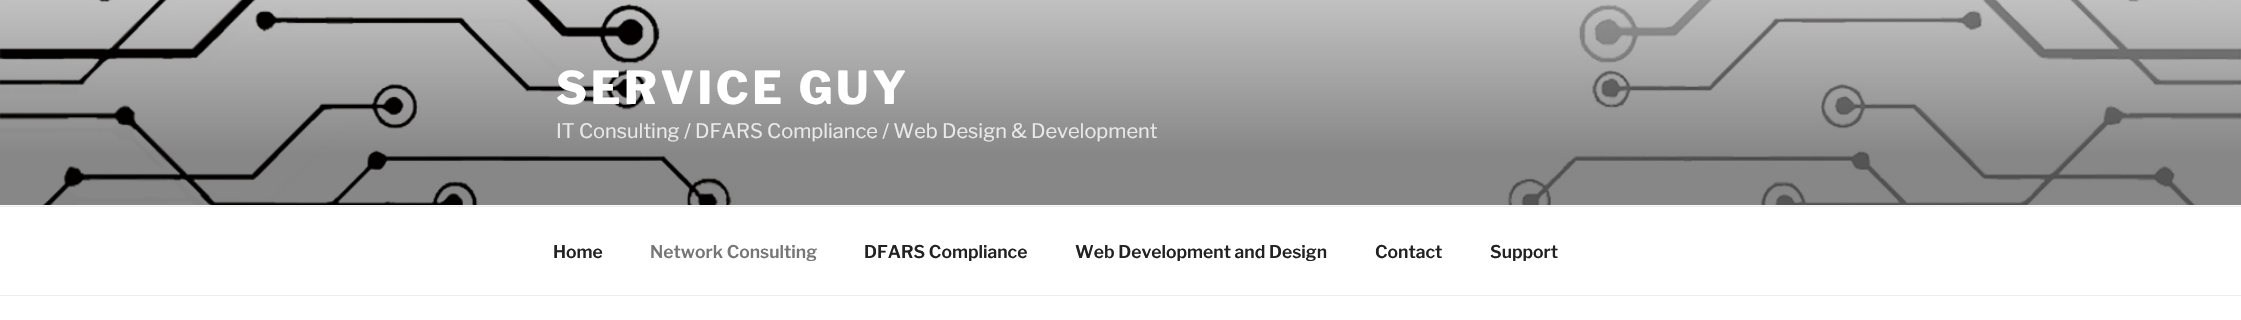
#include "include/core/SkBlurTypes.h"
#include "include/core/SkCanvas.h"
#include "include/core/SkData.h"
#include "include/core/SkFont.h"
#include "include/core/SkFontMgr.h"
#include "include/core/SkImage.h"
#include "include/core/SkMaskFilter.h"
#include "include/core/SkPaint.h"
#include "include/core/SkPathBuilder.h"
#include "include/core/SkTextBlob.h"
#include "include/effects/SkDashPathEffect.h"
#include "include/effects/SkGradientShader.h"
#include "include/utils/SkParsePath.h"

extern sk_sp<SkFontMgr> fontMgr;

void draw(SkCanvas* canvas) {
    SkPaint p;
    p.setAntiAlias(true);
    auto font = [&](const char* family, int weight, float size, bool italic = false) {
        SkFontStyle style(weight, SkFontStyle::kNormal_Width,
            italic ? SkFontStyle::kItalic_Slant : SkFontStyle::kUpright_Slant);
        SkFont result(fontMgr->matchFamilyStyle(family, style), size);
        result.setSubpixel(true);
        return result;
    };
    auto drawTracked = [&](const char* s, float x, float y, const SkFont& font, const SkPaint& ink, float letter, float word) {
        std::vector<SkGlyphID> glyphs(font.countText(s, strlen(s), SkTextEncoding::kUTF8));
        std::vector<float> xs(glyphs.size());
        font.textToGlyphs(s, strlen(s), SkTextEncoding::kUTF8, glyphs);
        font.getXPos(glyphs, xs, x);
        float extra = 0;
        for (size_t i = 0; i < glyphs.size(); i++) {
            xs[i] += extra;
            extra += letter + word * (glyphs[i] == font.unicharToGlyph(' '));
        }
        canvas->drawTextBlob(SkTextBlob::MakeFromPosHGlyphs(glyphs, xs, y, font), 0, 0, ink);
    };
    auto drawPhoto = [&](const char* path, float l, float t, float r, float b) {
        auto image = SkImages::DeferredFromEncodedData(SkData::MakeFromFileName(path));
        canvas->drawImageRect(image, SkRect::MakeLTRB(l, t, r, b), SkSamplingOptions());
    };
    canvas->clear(0xFFFFFFFF);
    p.setColor(0xFFFAFAFA);
    canvas->drawRect(SkRect::MakeLTRB(0, 205, 2241, 206), p);
    drawPhoto("media/1.png", 0, 0, 2241, 205);
    auto font1 = font("Libre Franklin", 800, 45);
    p.setColor(0xFFFFFFFF);
    drawTracked("SERVICE GUY", 556, 104, font1, p, 3.6f, 0);
    auto font2 = font("Libre Franklin", 400, 20);
    p.setColor(0xFFE9E9E9);
    canvas->drawString("IT Consulting / DFARS Compliance / Web Design & Development", 556, 138, font2, p);
    p.setColor(0xFFEEEEEE);
    canvas->drawRect(SkRect::MakeLTRB(0, 206, 2241, 207), p);
    canvas->drawRect(SkRect::MakeLTRB(0, 295, 2241, 296), p);
    auto font3 = font("Libre Franklin", 600, 17.5f);
    p.setColor(0xFF222222);
    canvas->drawString("Home", 553, 258, font3, p);
    p.setColor(0xFF767676);
    canvas->drawString("Network Consulting", 650, 258, font3, p);
    p.setColor(0xFF222222);
    {
        const struct { const char* s; float x, y; } items[] = {
            {"DFARS Compliance", 864, 258},
            {"Web Development and Design", 1075, 258},
            {"Contact", 1375, 258},
            {"Support", 1490, 258},
        };
        for (auto [s, x, y] : items) {
            canvas->drawString(s, x, y, font3, p);
        }
    }
}
